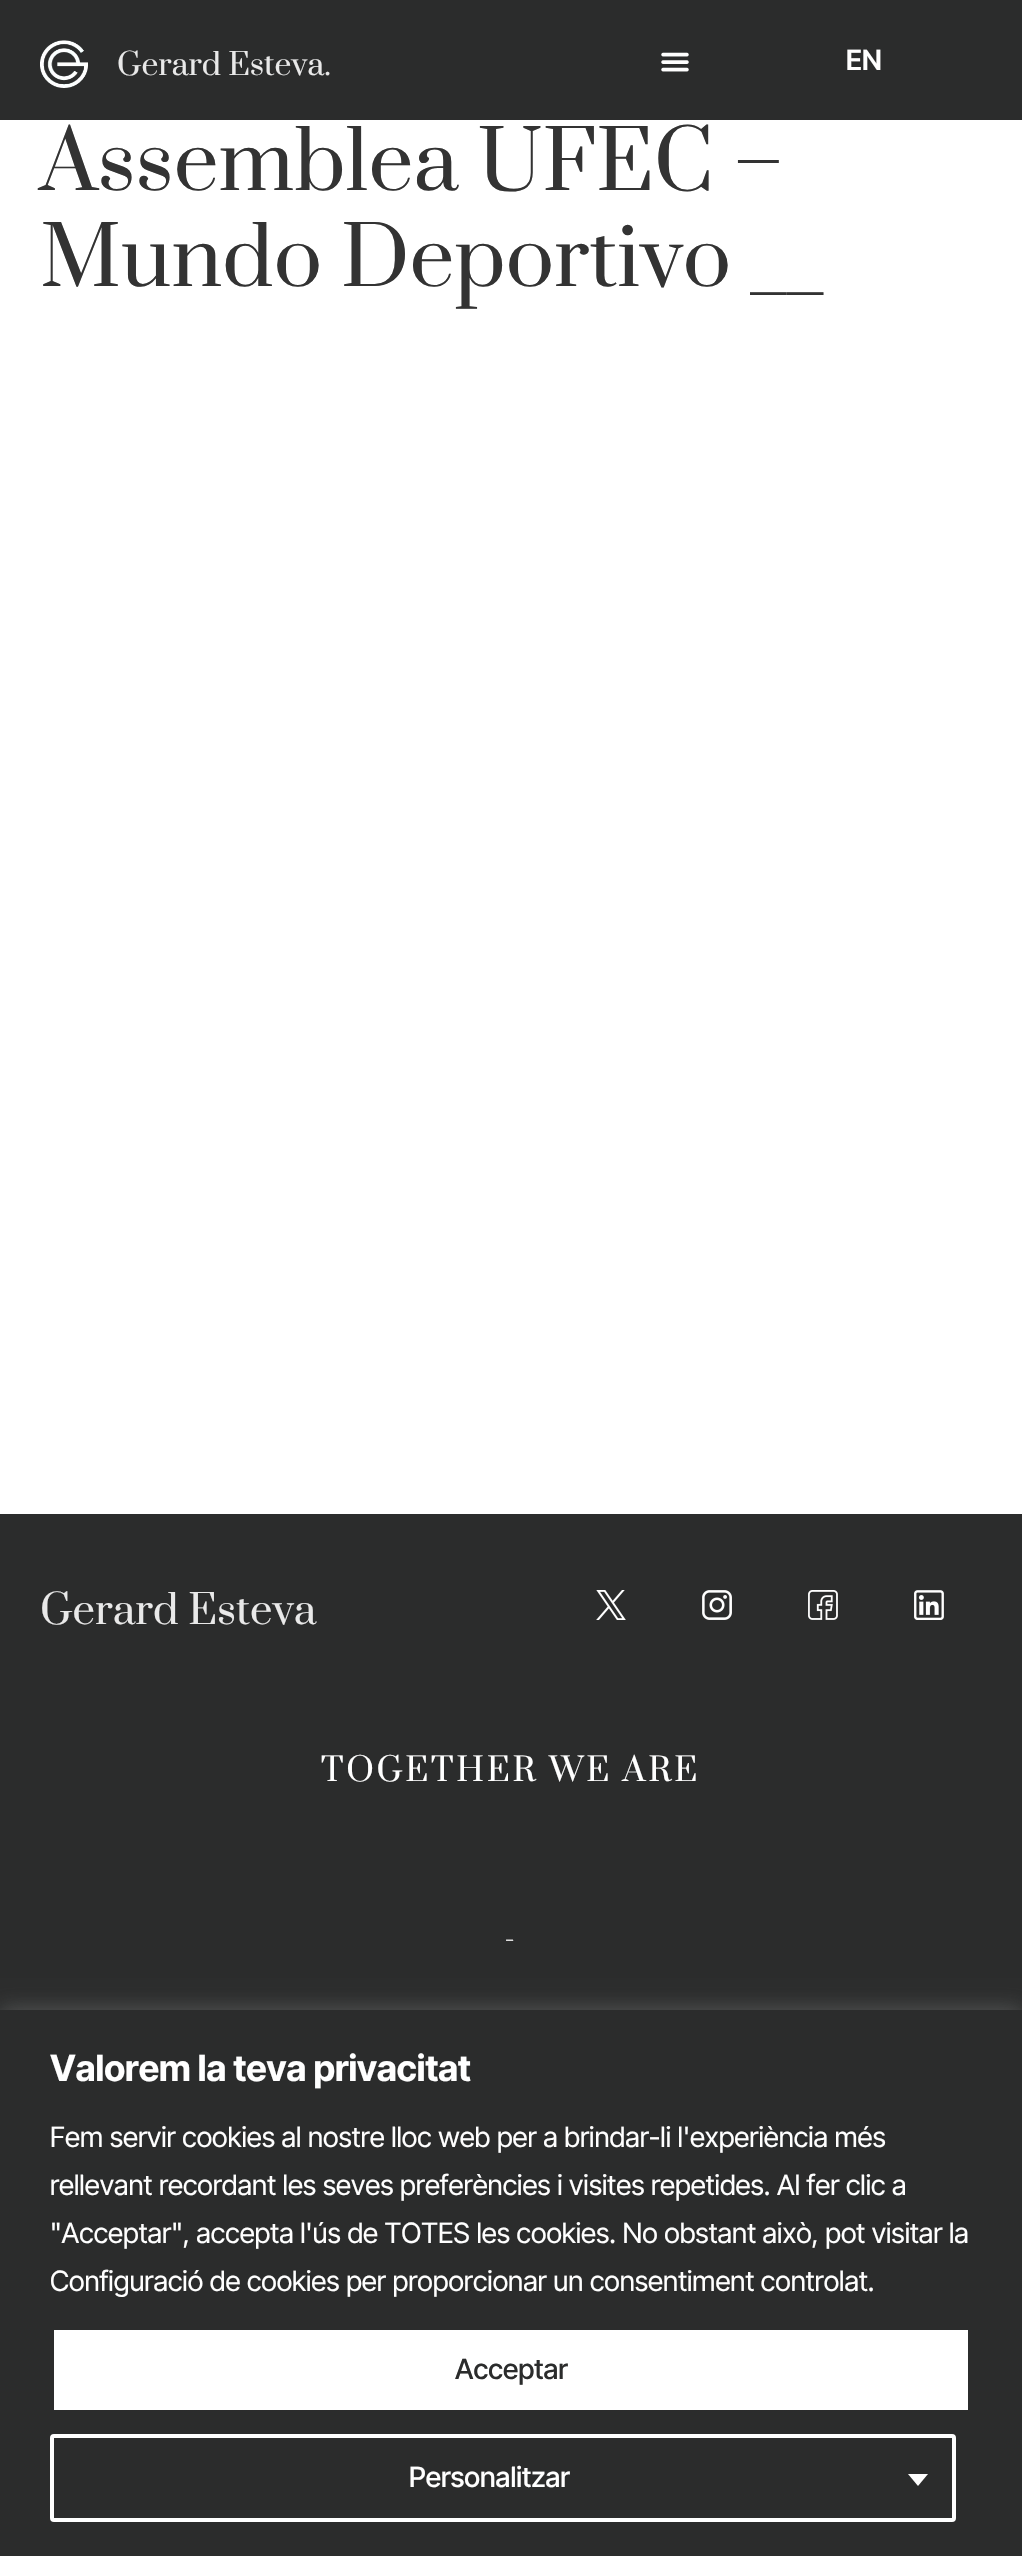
#include "include/core/SkBlurTypes.h"
#include "include/core/SkCanvas.h"
#include "include/core/SkData.h"
#include "include/core/SkFont.h"
#include "include/core/SkFontMgr.h"
#include "include/core/SkImage.h"
#include "include/core/SkMaskFilter.h"
#include "include/core/SkPaint.h"
#include "include/core/SkPathBuilder.h"
#include "include/core/SkTextBlob.h"
#include "include/effects/SkDashPathEffect.h"
#include "include/effects/SkGradientShader.h"
#include "include/utils/SkParsePath.h"

extern sk_sp<SkFontMgr> fontMgr;

void draw(SkCanvas* canvas) {
    SkPaint p;
    p.setAntiAlias(true);
    auto font = [&](const char* family, int weight, float size, bool italic = false) {
        SkFontStyle style(weight, SkFontStyle::kNormal_Width,
            italic ? SkFontStyle::kItalic_Slant : SkFontStyle::kUpright_Slant);
        SkFont result(fontMgr->matchFamilyStyle(family, style), size);
        result.setSubpixel(true);
        return result;
    };
    auto drawTracked = [&](const char* s, float x, float y, const SkFont& font, const SkPaint& ink, float letter, float word) {
        std::vector<SkGlyphID> glyphs(font.countText(s, strlen(s), SkTextEncoding::kUTF8));
        std::vector<float> xs(glyphs.size());
        font.textToGlyphs(s, strlen(s), SkTextEncoding::kUTF8, glyphs);
        font.getXPos(glyphs, xs, x);
        float extra = 0;
        for (size_t i = 0; i < glyphs.size(); i++) {
            xs[i] += extra;
            extra += letter + word * (glyphs[i] == font.unicharToGlyph(' '));
        }
        canvas->drawTextBlob(SkTextBlob::MakeFromPosHGlyphs(glyphs, xs, y, font), 0, 0, ink);
    };
    auto drawPhoto = [&](const char* path, float l, float t, float r, float b) {
        auto image = SkImages::DeferredFromEncodedData(SkData::MakeFromFileName(path));
        canvas->drawImageRect(image, SkRect::MakeLTRB(l, t, r, b), SkSamplingOptions());
    };
    canvas->clear(0xFFFFFFFF);
    p.setColor(0xFF2B2C2C);
    canvas->drawRect(SkRect::MakeLTRB(0, 0, 1022, 120), p);
    drawPhoto("media/1.png", 40, 40, 88, 88);
    auto font1 = font("Prata", 400, 30);
    p.setColor(0xFFE9E9E9);
    canvas->drawString("Gerard Esteva.", 117, 75, font1, p);
    drawPhoto("media/2.png", 661, 52, 689, 72);
    auto font2 = font("Inter Tight", 600, 28);
    p.setColor(0xFFFFFFFF);
    canvas->drawString("EN", 846, 70, font2, p);
    auto font3 = font("Prata", 400, 80);
    p.setColor(0xFF333333);
    canvas->drawString("Assemblea UFEC –", 40, 190, font3, p);
    canvas->drawString("Mundo Deportivo __", 40, 286, font3, p);
    p.setColor(0xFF2B2C2C);
    canvas->drawRect(SkRect::MakeLTRB(0, 1514, 1022, 2010), p);
    auto font4 = font("Prata", 400, 40);
    p.setColor(0xFFE9E9E9);
    canvas->drawString("Gerard Esteva", 40, 1624, font4, p);
    drawPhoto("media/3.png", 596, 1590, 626, 1620);
    drawPhoto("media/4.png", 702, 1590, 732, 1620);
    drawPhoto("media/5.png", 808, 1590, 838, 1620);
    drawPhoto("media/6.png", 914, 1590, 944, 1620);
    auto font5 = font("Prata", 400, 32);
    p.setColor(0xFFFFFFFF);
    drawTracked("TOGETHER WE ARE", 321, 1781, font5, p, 2.75f, 0);
    drawTracked("-", 504, 1949, font5, p, 2.75f, 0);
    p.setColor(0x4DACABAB);
    p.setMaskFilter(SkMaskFilter::MakeBlur(kNormal_SkBlurStyle, 10));
    canvas->drawRect(SkRect::MakeLTRB(0, 2008, 1022, 2554), p);
    p.setMaskFilter(nullptr);
    p.setColor(0xFF2B2C2C);
    canvas->drawRect(SkRect::MakeLTRB(0, 2010, 1022, 2556), p);
    auto font6 = font("Inter Tight", 700, 36);
    p.setColor(0xFFFFFFFF);
    canvas->drawString("Valorem la teva privacitat", 50, 2081, font6, p);
    auto font7 = font("Inter Tight", 400, 28);
    {
        const struct { const char* s; float x, y; } items[] = {
            {"Fem servir cookies al nostre lloc web per a brindar-li l'experiència més", 50, 2147},
            {"rellevant recordant les seves preferències i visites repetides. Al fer clic a", 50, 2195},
            {"\"Acceptar\", accepta l'ús de TOTES les cookies. No obstant això, pot visitar la", 50, 2243},
            {"Configuració de cookies per proporcionar un consentiment controlat.", 50, 2291},
        };
        for (auto [s, x, y] : items) {
            canvas->drawString(s, x, y, font7, p);
        }
    }
    canvas->drawRoundRect(SkRect::MakeLTRB(52, 2328, 970, 2412), 2, 2, p);
    p.setStyle(SkPaint::kStroke_Style);
    p.setStrokeWidth(4);
    p.setColor(0xFF2B2C2C);
    canvas->drawRoundRect(SkRect::MakeLTRB(52, 2328, 970, 2412), 2, 2, p);
    auto font8 = font("Inter Tight", 500, 28);
    p.setStyle(SkPaint::kFill_Style);
    canvas->drawString("Acceptar", 455, 2379, font8, p);
    p.setStyle(SkPaint::kStroke_Style);
    p.setColor(0xFFFFFFFF);
    canvas->drawRoundRect(SkRect::MakeLTRB(52, 2436, 954, 2520), 2, 2, p);
    p.setStyle(SkPaint::kFill_Style);
    canvas->drawString("Personalitzar", 409, 2487, font8, p);
    canvas->drawPath(SkPathBuilder().moveTo(908, 2474).lineTo(928, 2474).lineTo(918, 2486).close().detach(), p);
}
